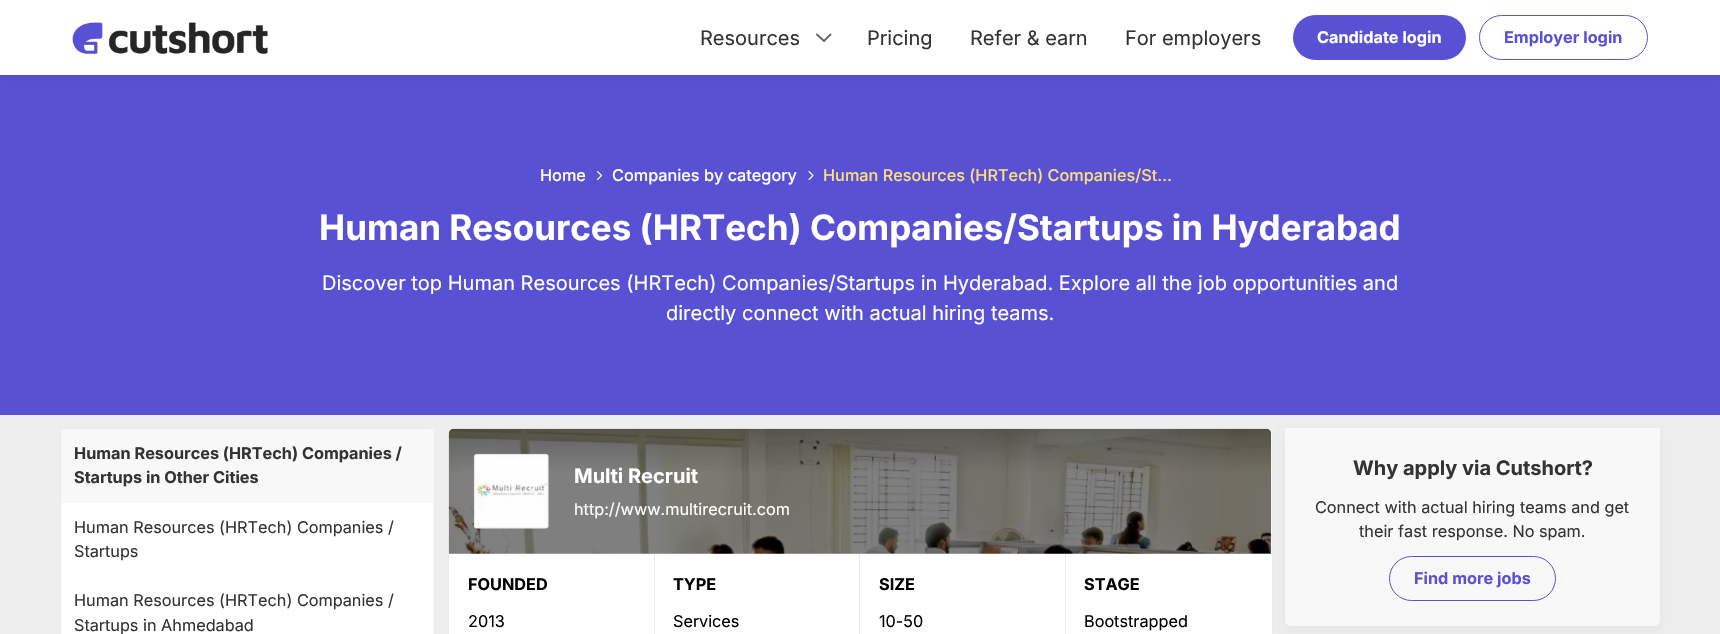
#include "include/core/SkBlurTypes.h"
#include "include/core/SkCanvas.h"
#include "include/core/SkData.h"
#include "include/core/SkFont.h"
#include "include/core/SkFontMgr.h"
#include "include/core/SkImage.h"
#include "include/core/SkMaskFilter.h"
#include "include/core/SkPaint.h"
#include "include/core/SkPathBuilder.h"
#include "include/core/SkTextBlob.h"
#include "include/effects/SkDashPathEffect.h"
#include "include/effects/SkGradientShader.h"
#include "include/utils/SkParsePath.h"

extern sk_sp<SkFontMgr> fontMgr;

void draw(SkCanvas* canvas) {
    SkPaint p;
    p.setAntiAlias(true);
    auto font = [&](const char* family, int weight, float size, bool italic = false) {
        SkFontStyle style(weight, SkFontStyle::kNormal_Width,
            italic ? SkFontStyle::kItalic_Slant : SkFontStyle::kUpright_Slant);
        SkFont result(fontMgr->matchFamilyStyle(family, style), size);
        result.setSubpixel(true);
        return result;
    };
    auto drawPhoto = [&](const char* path, float l, float t, float r, float b) {
        auto image = SkImages::DeferredFromEncodedData(SkData::MakeFromFileName(path));
        canvas->drawImageRect(image, SkRect::MakeLTRB(l, t, r, b), SkSamplingOptions());
    };
    canvas->clear(0xFFEEEEEE);
    p.setColor(0xFF5851D3);
    canvas->drawRect(SkRect::MakeLTRB(0, 75, 1720, 415), p);
    p.setColor(0x0D000000);
    p.setMaskFilter(SkMaskFilter::MakeBlur(kNormal_SkBlurStyle, 5.5f));
    canvas->drawRect(SkRect::MakeLTRB(1, 5, 1719, 78), p);
    p.setMaskFilter(nullptr);
    p.setColor(0xFFFFFFFF);
    canvas->drawRect(SkRect::MakeLTRB(0, 0, 1720, 75), p);
    drawPhoto("media/1.png", 72, 22, 268, 54);
    auto font1 = font("Inter", 400, 20);
    p.setColor(0xFF333333);
    canvas->drawString("Resources", 700, 45, font1, p);
    p.setStyle(SkPaint::kStroke_Style);
    p.setStrokeWidth(1.9f);
    p.setStrokeCap(SkPaint::kRound_Cap);
    p.setStrokeJoin(SkPaint::kRound_Join);
    p.setColor(0xFF666666);
    canvas->drawPath(SkPathBuilder().moveTo(830.5f, 34.5f).lineTo(824, 41).lineTo(817, 34.5f).detach(), p);
    p.setStyle(SkPaint::kFill_Style);
    p.setColor(0xFF333333);
    {
        const struct { const char* s; float x, y; } items[] = {
            {"Pricing", 867, 45},
            {"Refer & earn", 970, 45},
            {"For employers", 1125, 45},
        };
        for (auto [s, x, y] : items) {
            canvas->drawString(s, x, y, font1, p);
        }
    }
    p.setColor(0xFF5851D3);
    canvas->drawRoundRect(SkRect::MakeLTRB(1293, 15, 1466, 60), 22.5f, 22.5f, p);
    auto font2 = font("Inter", 700, 16.25f);
    p.setColor(0xFFFFFFFF);
    canvas->drawString("Candidate login", 1317, 43, font2, p);
    p.setStyle(SkPaint::kStroke_Style);
    p.setStrokeWidth(1);
    p.setStrokeCap(SkPaint::kButt_Cap);
    p.setStrokeJoin(SkPaint::kMiter_Join);
    p.setColor(0xFF5851D3);
    canvas->drawRoundRect(SkRect::MakeLTRB(1479.5f, 15.5f, 1647.5f, 59.5f), 22, 22, p);
    p.setStyle(SkPaint::kFill_Style);
    canvas->drawString("Employer login", 1504, 43, font2, p);
    auto font3 = font("Inter", 500, 16.25f);
    p.setColor(0xFFFFFFFF);
    canvas->drawString("Home", 540, 181, font3, p);
    p.setStyle(SkPaint::kStroke_Style);
    p.setStrokeWidth(1.1f);
    p.setStrokeCap(SkPaint::kRound_Cap);
    p.setStrokeJoin(SkPaint::kRound_Join);
    canvas->drawPath(SkPathBuilder().moveTo(597.5f, 171.5f).lineTo(601.5f, 175.5f).lineTo(597.5f, 179.5f).detach(), p);
    p.setStyle(SkPaint::kFill_Style);
    canvas->drawString("Companies by category", 612, 181, font3, p);
    p.setStyle(SkPaint::kStroke_Style);
    canvas->drawPath(SkPathBuilder().moveTo(809, 171.5f).lineTo(813, 175.5f).lineTo(809, 179.5f).detach(), p);
    p.setStyle(SkPaint::kFill_Style);
    p.setColor(0xFFFFDE80);
    canvas->drawString("Human Resources (HRTech) Companies/St…", 823, 181, font3, p);
    auto font4 = font("Inter", 700, 35);
    p.setColor(0xFFFFFFFF);
    canvas->drawString("Human Resources (HRTech) Companies/Startups in Hyderabad", 319, 240, font4, p);
    canvas->drawString("Discover top Human Resources (HRTech) Companies/Startups in Hyderabad. Explore all the job opportunities and", 322, 290, font1, p);
    canvas->drawString("directly connect with actual hiring teams.", 666, 320, font1, p);
    canvas->drawPath(SkPathBuilder().moveTo(66, 428).lineTo(429, 428).cubicTo(432.5f, 428, 435, 430.5f, 435, 434).lineTo(435, 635).lineTo(60, 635).lineTo(60, 434).cubicTo(60, 430.5f, 62.5f, 428, 66, 428).close().detach(), p);
    p.setStyle(SkPaint::kStroke_Style);
    p.setStrokeWidth(1);
    p.setStrokeCap(SkPaint::kButt_Cap);
    p.setStrokeJoin(SkPaint::kMiter_Join);
    p.setColor(0xFFEAEAEA);
    canvas->drawRoundRect(SkRect::MakeLTRB(60.5f, 428.5f, 434.5f, 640.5f), 5.5f, 5.5f, p);
    p.setStyle(SkPaint::kFill_Style);
    p.setColor(0xFFF8F8F8);
    canvas->drawPath(SkPathBuilder().moveTo(66, 429).lineTo(429, 429).cubicTo(432, 429, 434, 431, 434, 434).lineTo(434, 503).lineTo(61, 503).lineTo(61, 434).cubicTo(61, 431, 63, 429, 66, 429).close().detach(), p);
    p.setColor(0xFF333333);
    canvas->drawString("Human Resources (HRTech) Companies /", 74, 459, font2, p);
    canvas->drawString("Startups in Other Cities", 74, 483, font2, p);
    auto font5 = font("Inter", 400, 16.25f);
    {
        const struct { const char* s; float x, y; } items[] = {
            {"Human Resources (HRTech) Companies /", 74, 533},
            {"Startups", 74, 557},
            {"Human Resources (HRTech) Companies /", 74, 606},
            {"Startups in Ahmedabad", 74, 631},
        };
        for (auto [s, x, y] : items) {
            canvas->drawString(s, x, y, font5, p);
        }
    }
    p.setColor(0x0D000000);
    p.setMaskFilter(SkMaskFilter::MakeBlur(kNormal_SkBlurStyle, 5.5f));
    canvas->drawRoundRect(SkRect::MakeLTRB(1286, 433, 1659, 629), 5, 5, p);
    p.setMaskFilter(nullptr);
    p.setColor(0xFFFFFFFF);
    canvas->drawPath(SkPathBuilder().moveTo(454, 428).lineTo(1267, 428).cubicTo(1270.5f, 428, 1273, 430.5f, 1273, 434).lineTo(1273, 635).lineTo(448, 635).lineTo(448, 434).cubicTo(448, 430.5f, 450.5f, 428, 454, 428).close().detach(), p);
    p.setStyle(SkPaint::kStroke_Style);
    p.setColor(0xFFEAEAEA);
    canvas->drawRoundRect(SkRect::MakeLTRB(448.5f, 428.5f, 1272.5f, 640.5f), 5.5f, 5.5f, p);
    drawPhoto("media/2.png", 448, 428, 1272, 554);
    drawPhoto("media/3.png", 473, 453, 549, 529);
    auto font6 = font("Inter", 700, 20);
    p.setStyle(SkPaint::kFill_Style);
    p.setColor(0xFFFFFFFF);
    canvas->drawString("Multi Recruit", 574, 483, font6, p);
    canvas->drawString("http://www.multirecruit.com", 574, 515, font5, p);
    p.setColor(0xFFEAEAEA);
    canvas->drawRect(SkRect::MakeLTRB(654, 554, 655, 634), p);
    p.setColor(0xFF000000);
    canvas->drawString("FOUNDED", 468, 590, font2, p);
    canvas->drawString("2013", 468, 627, font5, p);
    p.setColor(0xFFEAEAEA);
    canvas->drawRect(SkRect::MakeLTRB(859, 554, 860, 634), p);
    p.setColor(0xFF000000);
    canvas->drawString("TYPE", 673, 590, font2, p);
    canvas->drawString("Services", 673, 627, font5, p);
    p.setColor(0xFFEAEAEA);
    canvas->drawRect(SkRect::MakeLTRB(1065, 554, 1066, 634), p);
    p.setColor(0xFF000000);
    canvas->drawString("SIZE", 879, 590, font2, p);
    canvas->drawString("10-50", 879, 627, font5, p);
    canvas->drawString("STAGE", 1084, 590, font2, p);
    canvas->drawString("Bootstrapped", 1084, 627, font5, p);
    p.setColor(0xFFF8F8F8);
    canvas->drawPath(SkPathBuilder().moveTo(1285, 428).lineTo(1660, 428).lineTo(1660, 620).cubicTo(1660, 623.5f, 1657.5f, 626, 1654, 626).lineTo(1291, 626).cubicTo(1287.5f, 626, 1285, 623.5f, 1285, 620).close().detach(), p);
    p.setColor(0xFF333333);
    canvas->drawString("Why apply via Cutshort?", 1353, 475, font6, p);
    canvas->drawString("Connect with actual hiring teams and get", 1315, 513, font5, p);
    canvas->drawString("their fast response. No spam.", 1359, 537, font5, p);
    p.setStyle(SkPaint::kStroke_Style);
    p.setColor(0xFF5851D3);
    canvas->drawRoundRect(SkRect::MakeLTRB(1389.5f, 556.5f, 1555.5f, 600.5f), 22, 22, p);
    p.setStyle(SkPaint::kFill_Style);
    canvas->drawString("Find more jobs", 1414, 584, font2, p);
}
